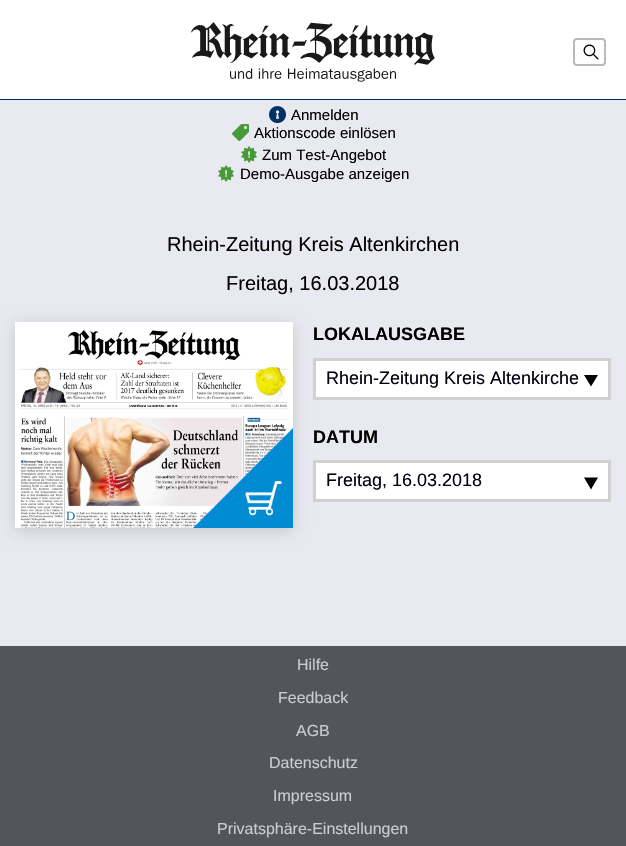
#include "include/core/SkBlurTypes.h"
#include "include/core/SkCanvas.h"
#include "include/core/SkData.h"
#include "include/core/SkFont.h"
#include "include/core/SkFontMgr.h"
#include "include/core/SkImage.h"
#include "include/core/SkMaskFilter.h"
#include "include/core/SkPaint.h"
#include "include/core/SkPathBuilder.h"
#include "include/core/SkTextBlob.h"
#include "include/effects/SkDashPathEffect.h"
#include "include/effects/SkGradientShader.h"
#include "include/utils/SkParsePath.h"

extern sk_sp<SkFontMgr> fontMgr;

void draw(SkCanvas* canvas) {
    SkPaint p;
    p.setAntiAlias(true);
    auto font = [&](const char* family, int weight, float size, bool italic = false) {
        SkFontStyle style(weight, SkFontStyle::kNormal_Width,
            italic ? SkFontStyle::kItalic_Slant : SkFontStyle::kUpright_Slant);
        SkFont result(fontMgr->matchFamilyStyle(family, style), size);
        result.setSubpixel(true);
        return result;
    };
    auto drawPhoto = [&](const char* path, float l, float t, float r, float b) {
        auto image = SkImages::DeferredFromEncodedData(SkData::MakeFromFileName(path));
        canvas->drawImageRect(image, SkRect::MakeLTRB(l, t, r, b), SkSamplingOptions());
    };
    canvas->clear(0xFFE9E9F1);
    p.setColor(0xFFFFFFFF);
    canvas->drawRect(SkRect::MakeLTRB(0, 0, 626, 99), p);
    p.setColor(0xFF002B55);
    canvas->drawRect(SkRect::MakeLTRB(0, 99, 626, 100), p);
    drawPhoto("media/1.png", 191, 22, 435, 82);
    p.setStyle(SkPaint::kStroke_Style);
    p.setStrokeWidth(2);
    p.setColor(0xFFBABABA);
    canvas->drawRoundRect(SkRect::MakeLTRB(574, 39, 605, 65), 3, 3, p);
    drawPhoto("media/2.png", 583, 44, 599, 60);
    drawPhoto("media/3.png", 269, 106, 286, 124);
    auto font1 = font("Liberation Sans", 400, 15);
    p.setStyle(SkPaint::kFill_Style);
    p.setColor(0xFF000000);
    canvas->drawString("Anmelden", 291, 120, font1, p);
    drawPhoto("media/4.png", 232, 124, 249, 141);
    canvas->drawString("Aktionscode einlösen", 254, 138, font1, p);
    drawPhoto("media/5.png", 241, 146, 257, 163);
    canvas->drawString("Zum Test-Angebot", 262, 160, font1, p);
    drawPhoto("media/5.png", 218, 165, 234, 182);
    canvas->drawString("Demo-Ausgabe anzeigen", 240, 179, font1, p);
    auto font2 = font("Liberation Sans", 400, 20);
    canvas->drawString("Rhein-Zeitung Kreis Altenkirchen", 167, 251, font2, p);
    canvas->drawString("Freitag, 16.03.2018", 226, 290, font2, p);
    p.setColor(0x26000000);
    p.setMaskFilter(SkMaskFilter::MakeBlur(kNormal_SkBlurStyle, 7.5f));
    canvas->drawRect(SkRect::MakeLTRB(15, 325, 293, 531), p);
    p.setMaskFilter(nullptr);
    drawPhoto("media/6.png", 15, 322, 293, 528);
    drawPhoto("media/7.png", 193, 428, 293, 528);
    auto font3 = font("Liberation Sans", 700, 18);
    p.setColor(0xFF000000);
    canvas->drawString("LOKALAUSGABE", 313, 340, font3, p);
    p.setColor(0xFFFFFFFF);
    canvas->drawRect(SkRect::MakeLTRB(314.5f, 359.5f, 609.5f, 398.5f), p);
    p.setStyle(SkPaint::kStroke_Style);
    p.setStrokeWidth(3);
    p.setColor(0xFFD1D1D1);
    canvas->drawRect(SkRect::MakeLTRB(314.5f, 359.5f, 609.5f, 398.5f), p);
    auto font4 = font("Liberation Sans", 400, 18);
    p.setStyle(SkPaint::kFill_Style);
    p.setColor(0xFF00000F);
    canvas->drawString("Rhein-Zeitung Kreis Altenkirche", 326, 384, font4, p);
    p.setColor(0xFF000000);
    canvas->drawPath(SkPathBuilder().moveTo(584, 375).lineTo(598, 375).lineTo(591, 386.5f).close().detach(), p);
    canvas->drawString("DATUM", 313, 443, font3, p);
    p.setColor(0xFFFFFFFF);
    canvas->drawRect(SkRect::MakeLTRB(314.5f, 461.5f, 609.5f, 500.5f), p);
    p.setStyle(SkPaint::kStroke_Style);
    p.setColor(0xFFD1D1D1);
    canvas->drawRect(SkRect::MakeLTRB(314.5f, 461.5f, 609.5f, 500.5f), p);
    p.setStyle(SkPaint::kFill_Style);
    p.setColor(0xFF00000F);
    canvas->drawString("Freitag, 16.03.2018", 326, 486, font4, p);
    p.setColor(0xFF000000);
    canvas->drawPath(SkPathBuilder().moveTo(584, 477.5f).lineTo(598, 477.5f).lineTo(591, 489.5f).close().detach(), p);
    p.setColor(0xFF52565C);
    canvas->drawRect(SkRect::MakeLTRB(0, 646, 626, 846), p);
    auto font5 = font("Liberation Sans", 400, 16);
    p.setColor(0xFFCCCCCE);
    {
        const struct { const char* s; float x, y; } items[] = {
            {"Hilfe", 297, 670},
            {"Feedback", 278, 703},
            {"AGB", 296, 736},
            {"Datenschutz", 269, 768},
            {"Impressum", 273, 801},
            {"Privatsphäre-Einstellungen", 217, 834},
        };
        for (auto [s, x, y] : items) {
            canvas->drawString(s, x, y, font5, p);
        }
    }
}
